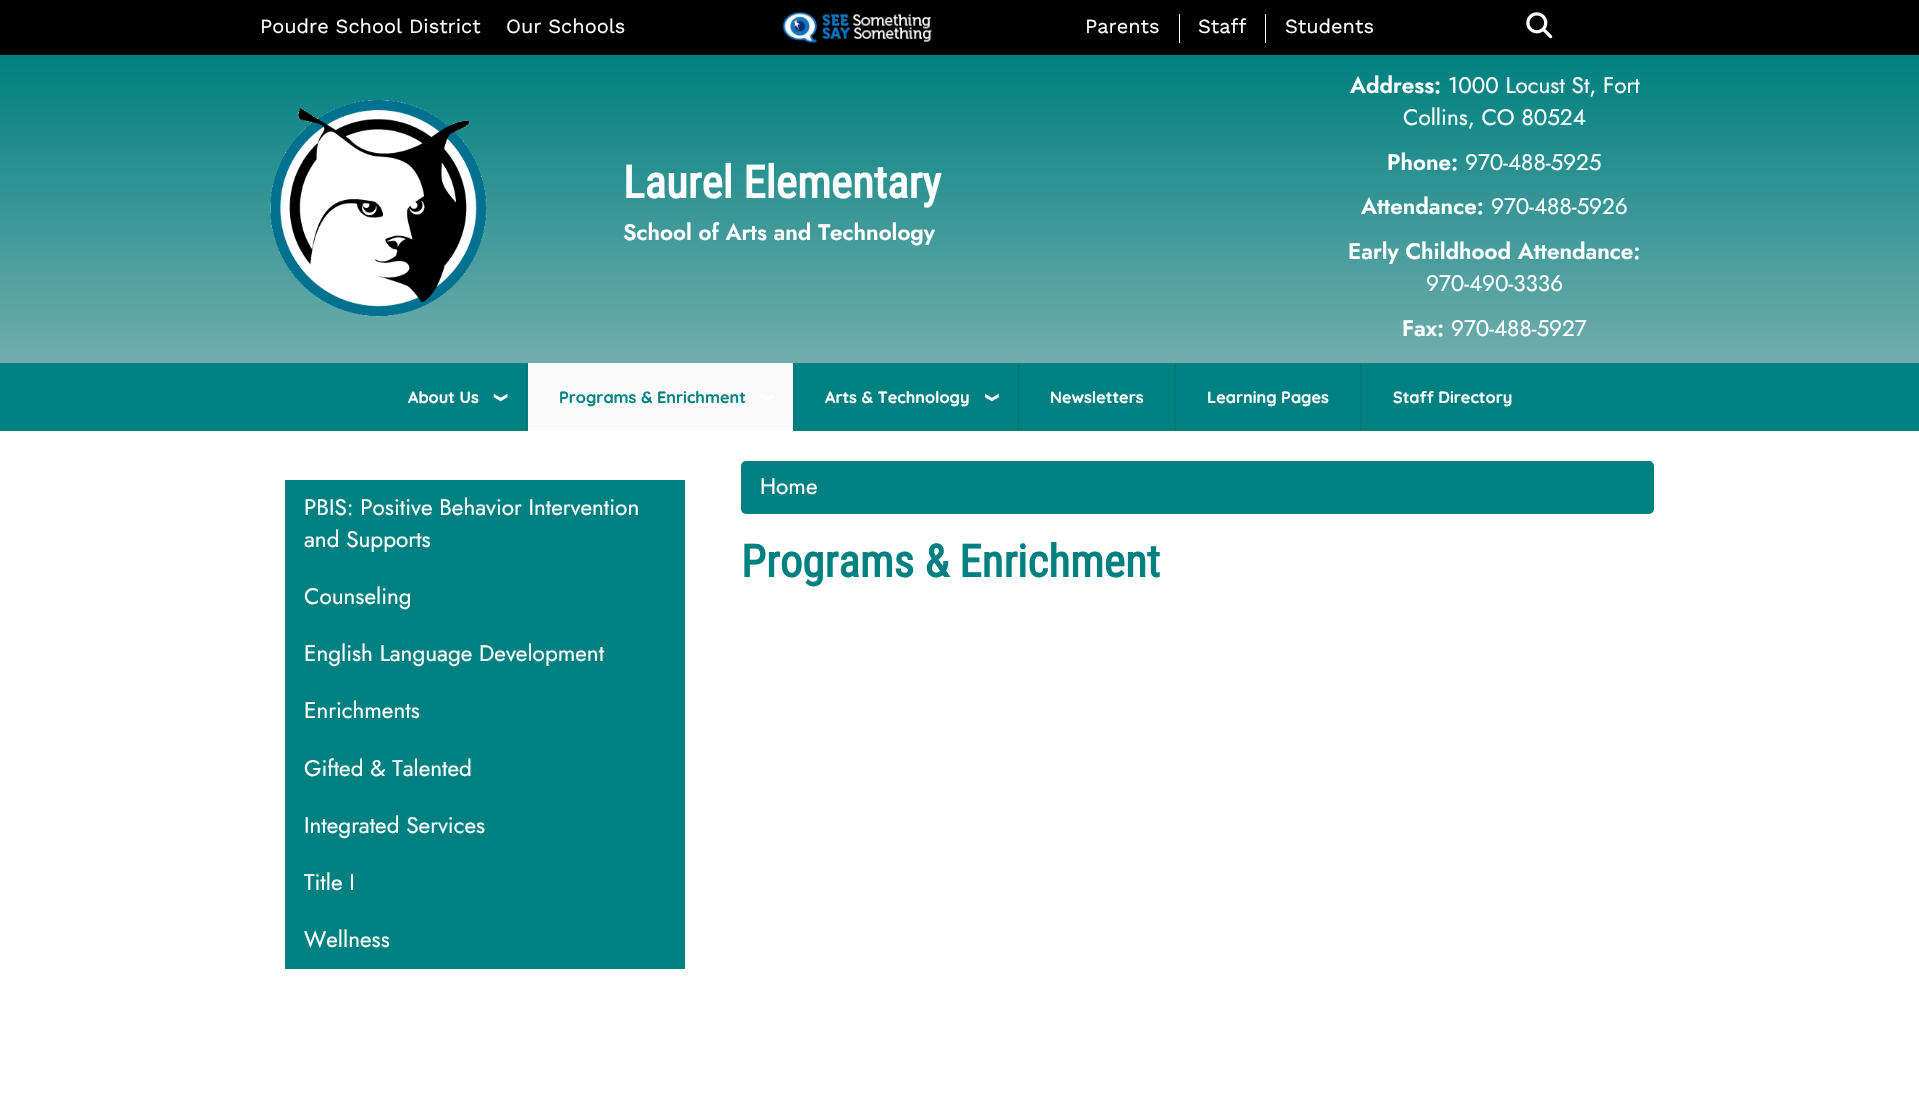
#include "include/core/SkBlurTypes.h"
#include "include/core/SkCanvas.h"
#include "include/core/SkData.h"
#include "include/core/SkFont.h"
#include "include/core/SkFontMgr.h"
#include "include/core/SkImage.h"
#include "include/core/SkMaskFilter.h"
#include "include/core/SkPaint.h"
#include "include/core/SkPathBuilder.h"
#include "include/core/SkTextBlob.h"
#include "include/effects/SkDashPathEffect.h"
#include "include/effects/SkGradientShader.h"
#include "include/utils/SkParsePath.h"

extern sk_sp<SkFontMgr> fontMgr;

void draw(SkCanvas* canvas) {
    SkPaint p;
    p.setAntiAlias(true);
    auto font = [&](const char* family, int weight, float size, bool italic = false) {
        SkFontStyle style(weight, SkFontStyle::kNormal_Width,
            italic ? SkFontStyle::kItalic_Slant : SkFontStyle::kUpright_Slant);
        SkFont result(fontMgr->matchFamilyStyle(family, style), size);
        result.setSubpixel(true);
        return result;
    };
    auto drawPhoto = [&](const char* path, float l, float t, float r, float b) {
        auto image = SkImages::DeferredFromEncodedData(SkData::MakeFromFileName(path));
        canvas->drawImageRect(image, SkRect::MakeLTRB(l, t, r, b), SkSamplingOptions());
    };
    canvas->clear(0xFFFFFFFF);
    p.setColor(0xFF000000);
    canvas->drawRect(SkRect::MakeLTRB(0, 0, 1919, 55), p);
    auto font1 = font("Work Sans", 400, 20);
    p.setColor(0xFFFFFFFF);
    canvas->drawString("Poudre School District", 260, 33, font1, p);
    canvas->drawString("Our Schools", 506, 33, font1, p);
    drawPhoto("media/1.png", 782, 12, 932, 43);
    canvas->drawString("Parents", 1085, 33, font1, p);
    canvas->drawRect(SkRect::MakeLTRB(1265, 14, 1266, 43), p);
    canvas->drawRect(SkRect::MakeLTRB(1179, 14, 1180, 43), p);
    canvas->drawString("Staff", 1198, 33, font1, p);
    canvas->drawString("Students", 1285, 33, font1, p);
    drawPhoto("media/2.png", 1526, 12, 1553, 39);
    {
        const SkColor colors[] = {0xFF008080, 0xFF72ADAD};
        const float stops[] = {0.01f, 1};
        const SkPoint ends[] = {{960, 55}, {960, 363}};
        p.setShader(SkGradientShader::MakeLinear(ends, colors, stops, 2, SkTileMode::kClamp));
        p.setAlpha(255);
    }
    canvas->drawRect(SkRect::MakeLTRB(0, 55, 1919, 363), p);
    drawPhoto("media/3.png", 270, 100, 487, 317);
    auto font2 = font("Roboto Condensed", 700, 45);
    p.setShader(nullptr);
    p.setColor(0xFFFFFFFF);
    canvas->drawString("Laurel Elementary", 623, 198, font2, p);
    auto font3 = font("Jost", 600, 22.5f);
    canvas->drawString("School of Arts and Technology", 623, 240, font3, p);
    canvas->drawString("Address:", 1350, 93, font3, p);
    auto font4 = font("Jost", 400, 22.5f);
    canvas->drawString("1000 Locust St, Fort", 1448, 93, font4, p);
    canvas->drawString("Collins, CO 80524", 1403, 125, font4, p);
    canvas->drawString("Phone:", 1387, 170, font3, p);
    canvas->drawString("970-488-5925", 1465, 170, font4, p);
    canvas->drawString("Attendance:", 1361, 214, font3, p);
    canvas->drawString("970-488-5926", 1491, 214, font4, p);
    canvas->drawString("Early Childhood Attendance:", 1348, 259, font3, p);
    canvas->drawString("970-490-3336", 1426, 291, font4, p);
    canvas->drawString("Fax:", 1402, 336, font3, p);
    canvas->drawString("970-488-5927", 1451, 336, font4, p);
    p.setColor(0xFF008080);
    canvas->drawRect(SkRect::MakeLTRB(0, 363, 1919, 431), p);
    auto font5 = font("Quicksand", 700, 16.25f);
    p.setColor(0xFFFFFFFF);
    canvas->drawString("About Us", 408, 403, font5, p);
    drawPhoto("media/4.png", 493, 393, 508, 402);
    p.setColor(0xFFFAFAFA);
    canvas->drawRect(SkRect::MakeLTRB(528, 363, 793, 431), p);
    p.setColor(0xFF007373);
    canvas->drawRect(SkRect::MakeLTRB(526, 363, 527, 431), p);
    p.setColor(0xFF008080);
    canvas->drawString("Programs & Enrichment", 559, 403, font5, p);
    drawPhoto("media/5.png", 760, 394, 773, 401);
    p.setColor(0xFF007373);
    canvas->drawRect(SkRect::MakeLTRB(793, 363, 794, 431), p);
    p.setColor(0xFFFFFFFF);
    canvas->drawString("Arts & Technology", 825, 403, font5, p);
    drawPhoto("media/6.png", 985, 393, 999, 402);
    p.setColor(0xFF007373);
    canvas->drawRect(SkRect::MakeLTRB(1018, 363, 1019, 431), p);
    p.setColor(0xFFFFFFFF);
    canvas->drawString("Newsletters", 1050, 403, font5, p);
    p.setColor(0xFF007373);
    canvas->drawRect(SkRect::MakeLTRB(1175, 363, 1176, 431), p);
    p.setColor(0xFFFFFFFF);
    canvas->drawString("Learning Pages", 1207, 403, font5, p);
    p.setColor(0xFF007373);
    canvas->drawRect(SkRect::MakeLTRB(1360, 363, 1361, 431), p);
    p.setColor(0xFFFFFFFF);
    canvas->drawString("Staff Directory", 1393, 403, font5, p);
    p.setColor(0xFF008080);
    canvas->drawRect(SkRect::MakeLTRB(285, 480, 685, 969), p);
    p.setColor(0xFFFFFFFF);
    {
        const struct { const char* s; float x, y; } items[] = {
            {"PBIS: Positive Behavior Intervention", 304, 515},
            {"and Supports", 304, 547},
            {"Counseling", 304, 604},
            {"English Language Development", 304, 661},
            {"Enrichments", 304, 718},
            {"Gifted & Talented", 304, 776},
            {"Integrated Services", 304, 833},
            {"Title I", 304, 890},
            {"Wellness", 304, 947},
        };
        for (auto [s, x, y] : items) {
            canvas->drawString(s, x, y, font4, p);
        }
    }
    p.setColor(0xFF008080);
    canvas->drawRoundRect(SkRect::MakeLTRB(741, 461, 1654, 514), 5, 5, p);
    p.setColor(0xFFFFFFFF);
    canvas->drawString("Home", 760, 494, font4, p);
    p.setColor(0xFF008080);
    canvas->drawString("Programs & Enrichment", 741, 577, font2, p);
}
